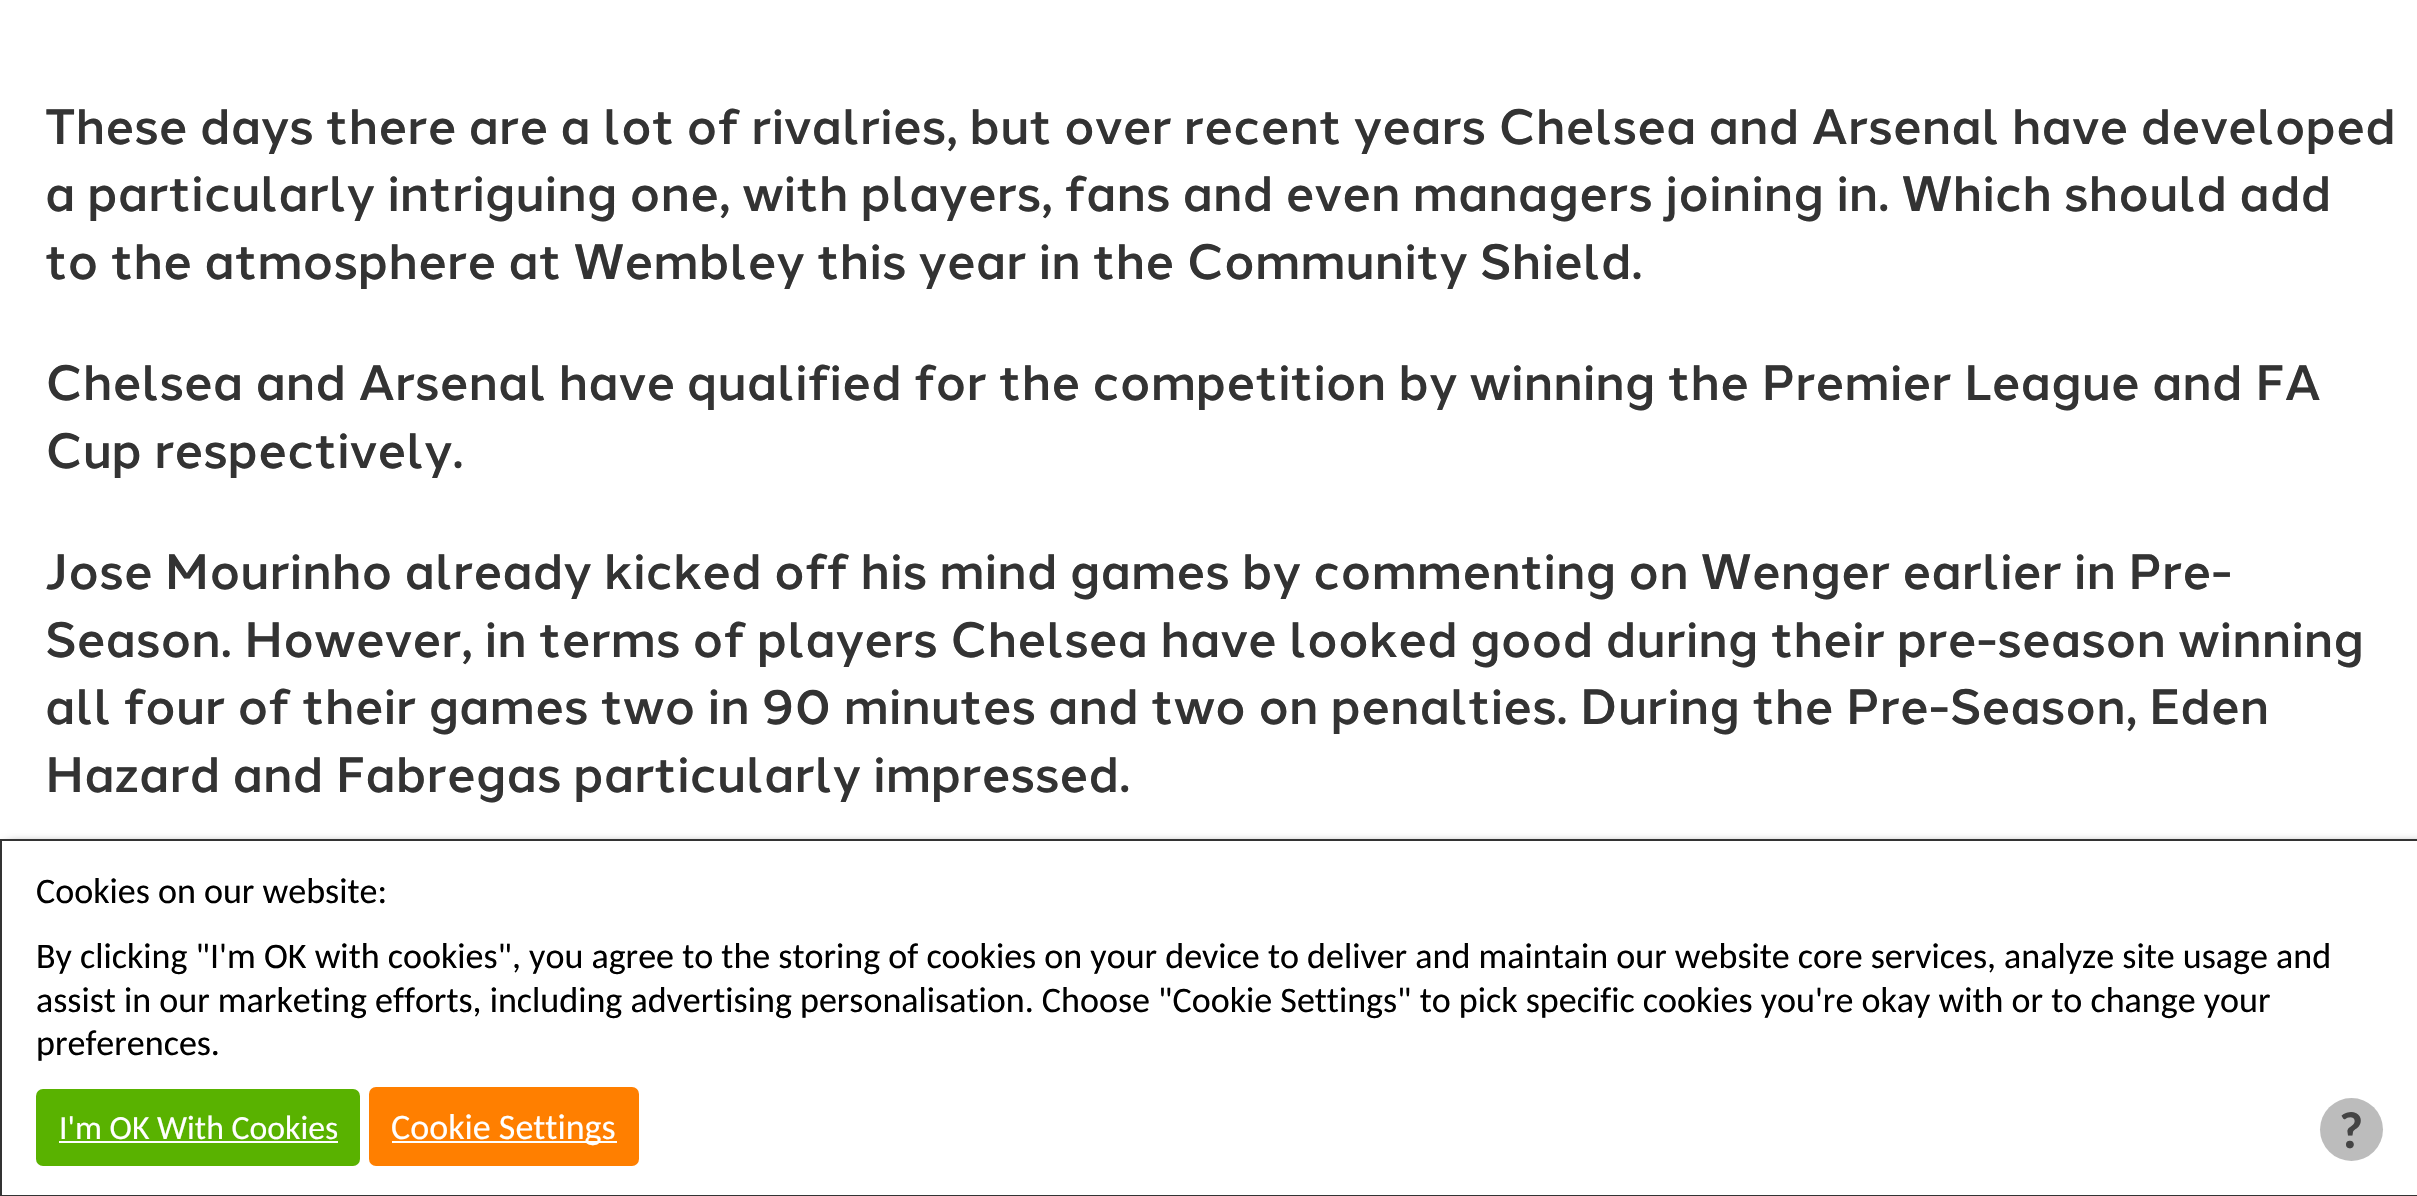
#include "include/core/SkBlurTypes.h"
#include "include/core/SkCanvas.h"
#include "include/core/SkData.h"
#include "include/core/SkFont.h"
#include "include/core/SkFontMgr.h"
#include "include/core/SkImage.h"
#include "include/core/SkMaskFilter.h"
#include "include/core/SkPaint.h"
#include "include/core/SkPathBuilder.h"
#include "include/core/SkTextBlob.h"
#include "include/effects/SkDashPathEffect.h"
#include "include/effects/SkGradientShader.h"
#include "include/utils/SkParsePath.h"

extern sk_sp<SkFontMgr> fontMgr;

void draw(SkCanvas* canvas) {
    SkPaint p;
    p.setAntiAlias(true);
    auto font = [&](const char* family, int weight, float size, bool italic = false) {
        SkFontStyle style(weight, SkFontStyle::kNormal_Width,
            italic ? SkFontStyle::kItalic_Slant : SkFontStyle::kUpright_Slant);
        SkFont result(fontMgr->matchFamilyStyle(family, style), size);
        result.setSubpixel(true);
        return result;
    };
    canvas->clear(0xFFFFFFFF);
    auto font1 = font("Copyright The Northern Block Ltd", 500, 49.5f);
    p.setColor(0xFF333333);
    {
        const struct { const char* s; float x, y; } items[] = {
            {"These days there are a lot of rivalries, but over recent years Chelsea and Arsenal have developed", 45, 144},
            {"a particularly intriguing one, with players, fans and even managers joining in. Which should add", 45, 211},
            {"to the atmosphere at Wembley this year in the Community Shield.", 45, 279},
            {"Chelsea and Arsenal have qualified for the competition by winning the Premier League and FA", 45, 400},
            {"Cup respectively.", 45, 468},
            {"Jose Mourinho already kicked off his mind games by commenting on Wenger earlier in Pre-", 45, 589},
            {"Season. However, in terms of players Chelsea have looked good during their pre-season winning", 45, 657},
            {"all four of their games two in 90 minutes and two on penalties. During the Pre-Season, Eden", 45, 724},
            {"Hazard and Fabregas particularly impressed.", 45, 792},
        };
        for (auto [s, x, y] : items) {
            canvas->drawString(s, x, y, font1, p);
        }
    }
    p.setColor(0xFF000000);
    p.setMaskFilter(SkMaskFilter::MakeBlur(kNormal_SkBlurStyle, 5.5f));
    canvas->drawRect(SkRect::MakeLTRB(7, 846, 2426, 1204), p);
    p.setMaskFilter(nullptr);
    p.setColor(0xFFFFFFFF);
    canvas->drawRect(SkRect::MakeLTRB(1, 840, 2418, 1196), p);
    p.setStyle(SkPaint::kStroke_Style);
    p.setStrokeWidth(2);
    p.setColor(0xFF333333);
    canvas->drawRect(SkRect::MakeLTRB(1, 840, 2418, 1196), p);
    auto font2 = font("Carlito", 400, 36);
    p.setStyle(SkPaint::kFill_Style);
    p.setColor(0xFF000000);
    {
        const struct { const char* s; float x, y; } items[] = {
            {"Cookies on our website:", 36, 903},
            {"By clicking \"I'm OK with cookies\", you agree to the storing of cookies on your device to deliver and maintain our website core services, analyze site usage and", 36, 968},
            {"assist in our marketing efforts, including advertising personalisation. Choose \"Cookie Settings\" to pick specific cookies you're okay with or to change your", 36, 1012},
            {"preferences.", 36, 1055},
        };
        for (auto [s, x, y] : items) {
            canvas->drawString(s, x, y, font2, p);
        }
    }
    p.setColor(0xFF59B200);
    canvas->drawRoundRect(SkRect::MakeLTRB(36, 1089, 360, 1166), 7, 7, p);
    auto font3 = font("Carlito", 400, 33.75f);
    p.setColor(0xFFFFFFFF);
    canvas->drawString("I'm OK With Cookies", 59, 1139, font3, p);
    canvas->drawRect(SkRect::MakeLTRB(59, 1141, 338, 1143), p);
    p.setColor(0xFFFF7F00);
    canvas->drawRoundRect(SkRect::MakeLTRB(369, 1087, 639, 1166), 7, 7, p);
    p.setColor(0xFFFFFFFF);
    canvas->drawRect(SkRect::MakeLTRB(392, 1141, 617, 1143), p);
    canvas->drawString("Cookie Settings", 391, 1139, font2, p);
    p.setColor(0xFFBCBCBC);
    canvas->drawCircle(2351.5f, 1129.5f, 31.5f, p);
    auto font4 = font("Carlito", 700, 52);
    p.setColor(0xFF444444);
    canvas->drawString("?", 2339, 1148, font4, p);
}
